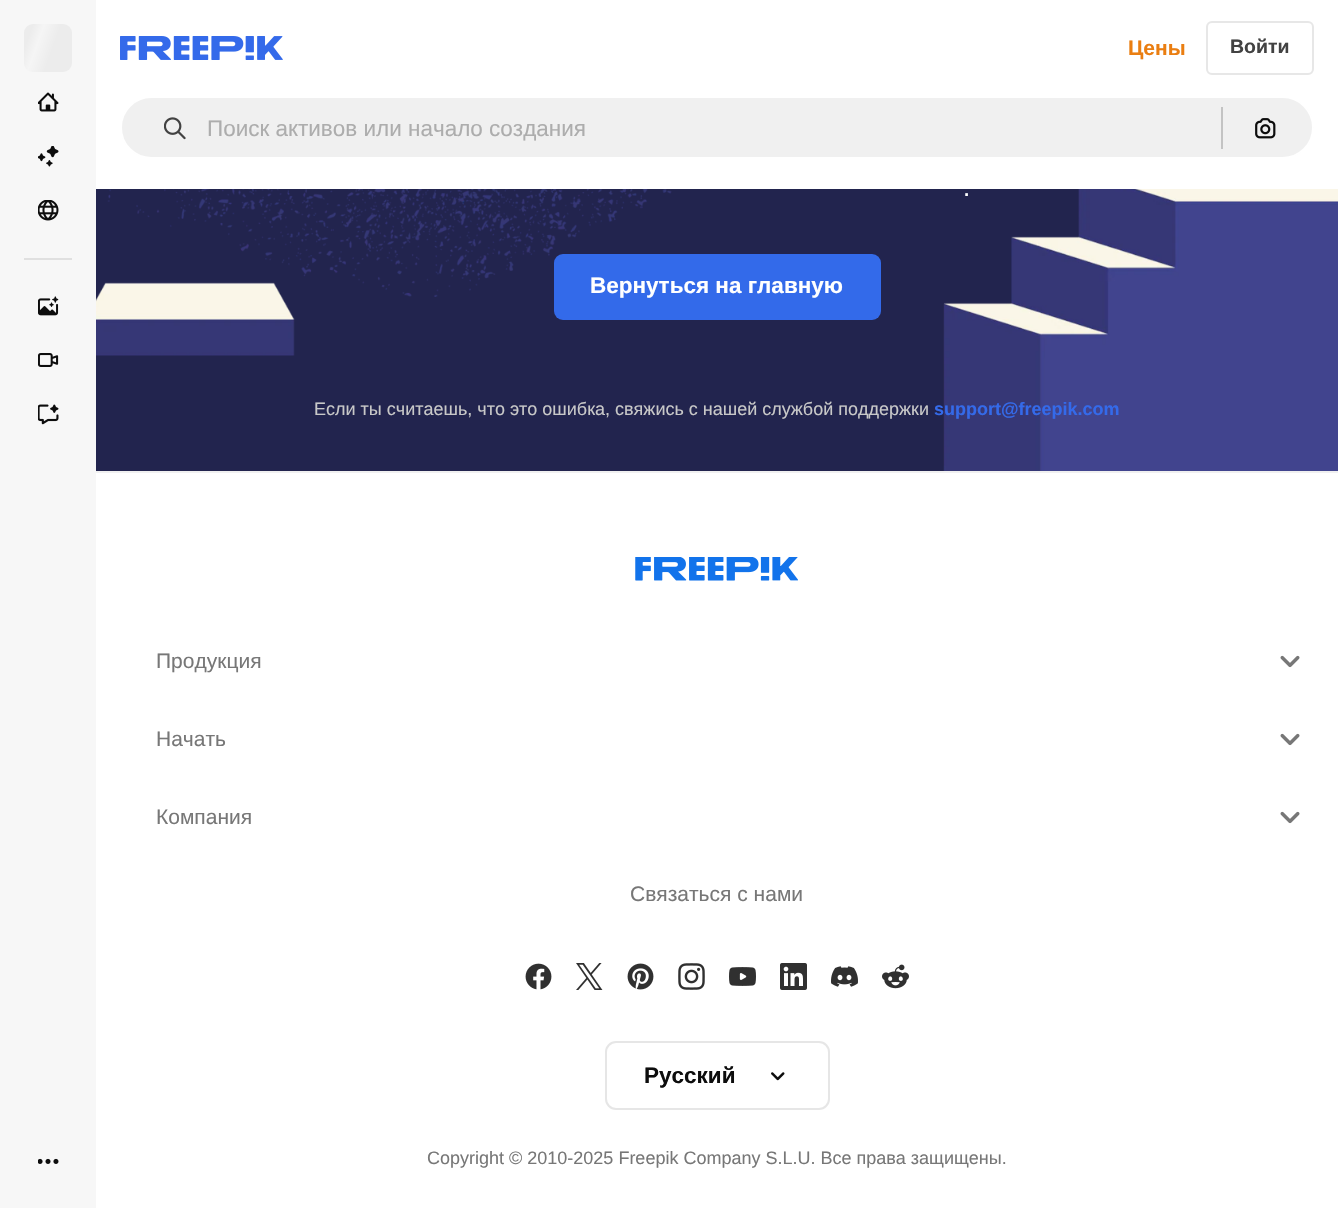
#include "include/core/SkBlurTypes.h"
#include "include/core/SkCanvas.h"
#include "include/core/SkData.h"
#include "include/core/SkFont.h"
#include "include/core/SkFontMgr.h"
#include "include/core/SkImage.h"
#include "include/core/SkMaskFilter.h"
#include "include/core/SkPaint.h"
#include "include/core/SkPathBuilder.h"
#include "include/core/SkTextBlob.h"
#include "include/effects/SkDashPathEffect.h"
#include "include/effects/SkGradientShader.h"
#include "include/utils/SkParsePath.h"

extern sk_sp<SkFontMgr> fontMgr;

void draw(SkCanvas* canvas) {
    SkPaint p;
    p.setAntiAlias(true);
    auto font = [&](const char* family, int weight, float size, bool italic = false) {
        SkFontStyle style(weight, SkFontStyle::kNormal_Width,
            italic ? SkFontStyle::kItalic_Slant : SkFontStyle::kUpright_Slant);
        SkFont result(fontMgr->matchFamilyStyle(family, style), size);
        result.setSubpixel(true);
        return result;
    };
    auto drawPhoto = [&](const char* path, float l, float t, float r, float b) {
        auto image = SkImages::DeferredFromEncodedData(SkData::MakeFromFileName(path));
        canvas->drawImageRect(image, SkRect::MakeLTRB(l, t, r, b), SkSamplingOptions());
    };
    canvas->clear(0xFFFFFFFF);
    p.setColor(0xFFF7F7F7);
    canvas->drawRect(SkRect::MakeLTRB(0, 0, 96, 1208), p);
    {
        const SkColor colors[] = {0xFFECECEC, 0xFFF5F5F5, 0xFFECECEC};
        const float stops[] = {0.08f, 0.18f, 0.33f};
        const SkPoint ends[] = {{22, 30}, {122, 66}};
        p.setShader(SkGradientShader::MakeLinear(ends, colors, stops, 3, SkTileMode::kClamp));
        p.setAlpha(255);
    }
    canvas->drawRoundRect(SkRect::MakeLTRB(24, 24, 72, 72), 9, 9, p);
    drawPhoto("media/1.png", 38, 92, 59, 112);
    drawPhoto("media/2.png", 38, 146, 59, 167);
    drawPhoto("media/3.png", 38, 200, 59, 221);
    p.setShader(nullptr);
    p.setColor(0xFFE0E0E0);
    canvas->drawRect(SkRect::MakeLTRB(24, 258, 72, 260), p);
    drawPhoto("media/4.png", 38, 296, 59, 316);
    drawPhoto("media/5.png", 38, 353, 59, 367);
    drawPhoto("media/6.png", 38, 404, 59, 425);
    drawPhoto("media/7.png", 38, 1158, 59, 1164);
    drawPhoto("media/8.png", 120, 36, 283, 60);
    auto font1 = font("Liberation Sans", 700, 21);
    p.setColor(0xFFEA7E11);
    canvas->drawString("Цены", 1128, 55, font1, p);
    p.setStyle(SkPaint::kStroke_Style);
    p.setStrokeWidth(2);
    p.setColor(0xFFE7E7E7);
    canvas->drawRoundRect(SkRect::MakeLTRB(1207, 22, 1313, 74), 5, 5, p);
    auto font2 = font("Liberation Sans", 700, 19.5f);
    p.setStyle(SkPaint::kFill_Style);
    p.setColor(0xFF424242);
    canvas->drawString("Войти", 1230, 53, font2, p);
    p.setColor(0xFFF0F0F0);
    canvas->drawRoundRect(SkRect::MakeLTRB(121, 97, 1313, 158), 30.5f, 30.5f, p);
    p.setStyle(SkPaint::kStroke_Style);
    p.setColor(0xFFFFFFFF);
    canvas->drawRoundRect(SkRect::MakeLTRB(121, 97, 1313, 158), 30.5f, 30.5f, p);
    drawPhoto("media/9.png", 164, 117, 186, 140);
    auto font3 = font("Liberation Sans", 400, 22.5f);
    p.setStyle(SkPaint::kFill_Style);
    p.setColor(0xFFADADAD);
    canvas->drawString("Поиск активов или начало создания", 207, 136, font3, p);
    p.setColor(0xFFC3C3C3);
    canvas->drawRect(SkRect::MakeLTRB(1221, 107, 1223, 149), p);
    drawPhoto("media/10.png", 1255, 118, 1276, 139);
    p.setColor(0xFF22244E);
    canvas->drawRect(SkRect::MakeLTRB(96, 189, 1080, 471), p);
    drawPhoto("media/11.png", 96, 189, 1338, 471);
    auto font4 = font("Liberation Sans", 400, 26);
    p.setColor(0xFFFFFFFF);
    canvas->drawString(".", 963, 196, font4, p);
    p.setColor(0xFF336AEA);
    canvas->drawRoundRect(SkRect::MakeLTRB(554, 254, 881, 320), 9, 9, p);
    auto font5 = font("Liberation Sans", 700, 22.5f);
    p.setColor(0xFFFFFFFF);
    canvas->drawString("Вернуться на главную", 590, 293, font5, p);
    auto font6 = font("Liberation Sans", 400, 18);
    p.setColor(0xFFC8C8C8);
    canvas->drawString("Если ты считаешь, что это ошибка, свяжись с нашей службой поддержки", 314, 415, font6, p);
    auto font7 = font("Liberation Sans", 700, 18);
    p.setColor(0xFF346AEA);
    canvas->drawString("support@freepik.com", 934, 415, font7, p);
    p.setColor(0xFFF0F0F0);
    canvas->drawRect(SkRect::MakeLTRB(96, 471, 1338, 473), p);
    drawPhoto("media/12.png", 635, 557, 798, 581);
    auto font8 = font("Liberation Sans", 400, 21);
    p.setColor(0xFF777777);
    canvas->drawString("Продукция", 156, 668, font8, p);
    drawPhoto("media/13.png", 1280, 655, 1300, 668);
    canvas->drawString("Начать", 156, 746, font8, p);
    drawPhoto("media/13.png", 1280, 733, 1300, 746);
    canvas->drawString("Компания", 156, 824, font8, p);
    drawPhoto("media/13.png", 1280, 811, 1300, 824);
    canvas->drawString("Связаться с нами", 630, 901, font8, p);
    drawPhoto("media/14.png", 525, 963, 552, 990);
    drawPhoto("media/15.png", 576, 963, 603, 990);
    drawPhoto("media/16.png", 627, 963, 654, 990);
    drawPhoto("media/17.png", 678, 963, 705, 990);
    drawPhoto("media/18.png", 729, 967, 756, 986);
    drawPhoto("media/19.png", 780, 963, 807, 990);
    drawPhoto("media/20.png", 831, 966, 858, 987);
    drawPhoto("media/21.png", 882, 964, 909, 989);
    p.setStyle(SkPaint::kStroke_Style);
    p.setColor(0xFFE6E6E6);
    canvas->drawRoundRect(SkRect::MakeLTRB(606, 1042, 829, 1109), 10, 10, p);
    p.setStyle(SkPaint::kFill_Style);
    p.setColor(0xFF0D0D0D);
    canvas->drawString("Pусский", 644, 1083, font5, p);
    drawPhoto("media/22.png", 771, 1072, 785, 1081);
    p.setColor(0xFF777777);
    canvas->drawString("Copyright © 2010-2025 Freepik Company S.L.U. Все права защищены.", 427, 1164, font6, p);
}
